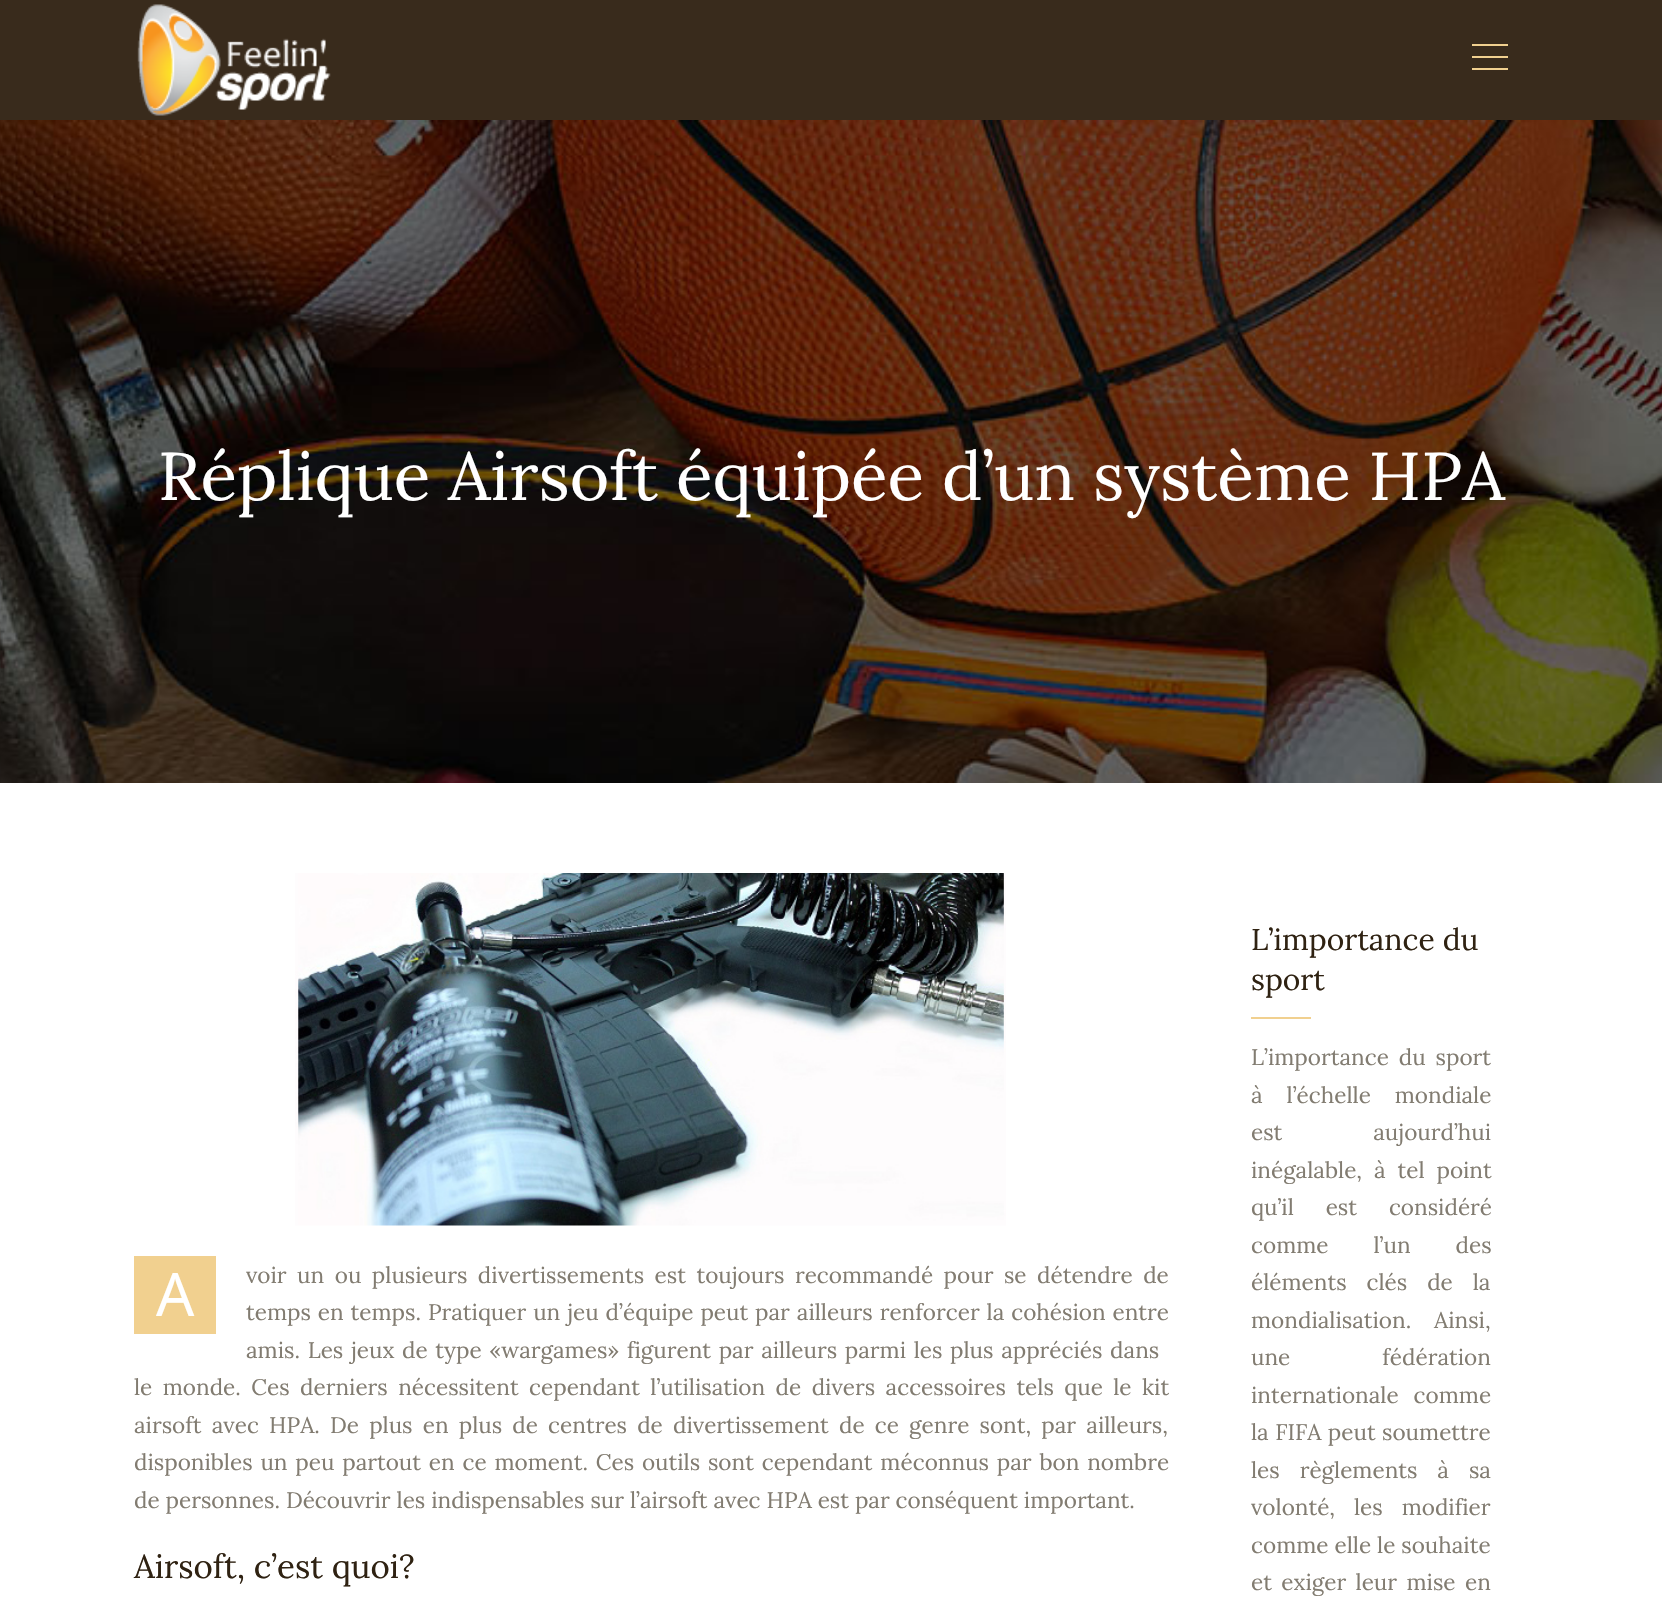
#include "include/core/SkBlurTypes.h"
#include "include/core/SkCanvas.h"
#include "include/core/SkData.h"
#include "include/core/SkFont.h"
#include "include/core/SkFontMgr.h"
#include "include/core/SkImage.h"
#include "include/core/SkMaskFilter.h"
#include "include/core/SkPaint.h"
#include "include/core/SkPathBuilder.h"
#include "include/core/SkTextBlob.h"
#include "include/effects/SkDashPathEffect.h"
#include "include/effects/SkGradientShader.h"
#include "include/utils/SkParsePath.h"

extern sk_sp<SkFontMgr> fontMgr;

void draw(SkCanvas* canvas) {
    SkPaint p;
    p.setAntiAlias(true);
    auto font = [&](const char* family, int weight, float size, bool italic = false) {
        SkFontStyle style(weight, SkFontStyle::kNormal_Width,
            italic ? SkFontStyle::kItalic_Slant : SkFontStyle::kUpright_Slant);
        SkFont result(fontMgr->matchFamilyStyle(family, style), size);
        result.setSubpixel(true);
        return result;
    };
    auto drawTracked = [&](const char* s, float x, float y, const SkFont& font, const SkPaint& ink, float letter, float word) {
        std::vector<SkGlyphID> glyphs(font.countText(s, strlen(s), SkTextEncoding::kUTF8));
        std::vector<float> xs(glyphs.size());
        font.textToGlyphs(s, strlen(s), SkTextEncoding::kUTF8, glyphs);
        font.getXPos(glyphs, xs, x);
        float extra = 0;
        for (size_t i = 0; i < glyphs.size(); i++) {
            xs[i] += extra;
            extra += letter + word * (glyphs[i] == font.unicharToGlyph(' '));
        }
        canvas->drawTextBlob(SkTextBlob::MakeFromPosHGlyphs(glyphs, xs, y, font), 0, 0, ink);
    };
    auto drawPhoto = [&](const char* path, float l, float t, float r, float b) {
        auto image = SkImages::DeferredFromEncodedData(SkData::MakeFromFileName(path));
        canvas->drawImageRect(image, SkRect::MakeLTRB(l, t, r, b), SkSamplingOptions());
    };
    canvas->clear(0xFFFFFFFF);
    p.setColor(0xFF392B1C);
    canvas->drawRect(SkRect::MakeLTRB(0, 0, 1662, 120), p);
    drawPhoto("media/1.png", 137, 4, 331, 116);
    {
        const struct { float l, t, r, b; SkColor color; } items[] = {
            {1472, 44, 1508, 46, 0xFFF1D08F},
            {1472, 56, 1508, 58, 0xFFF1D08F},
            {1472, 68, 1508, 70, 0xFFF1D08F},
        };
        for (auto [l, t, r, b, color] : items) {
            p.setColor(color);
            canvas->drawRect(SkRect::MakeLTRB(l, t, r, b), p);
        }
    }
    drawPhoto("media/2.png", 0, 120, 1662, 783);
    auto font1 = font("Lora", 400, 67.5f);
    p.setColor(0xFFFFFFFF);
    canvas->drawString("Réplique Airsoft équipée d’un système HPA", 158, 500, font1, p);
    drawPhoto("media/3.png", 295, 873, 1006, 1226);
    p.setColor(0xFFF1D08F);
    canvas->drawRect(SkRect::MakeLTRB(134, 1256, 216, 1334), p);
    auto font2 = font("Noto Sans", 400, 60);
    p.setColor(0xFFFFFFFF);
    canvas->drawString("A", 156, 1316, font2, p);
    auto font3 = font("Lora", 400, 22.5f);
    p.setColor(0xFF827C71);
    drawTracked("voir un ou plusieurs divertissements est toujours recommandé pour se détendre de", 246, 1283, font3, p, 0, 4.6f);
    drawTracked("temps en temps. Pratiquer un jeu d’équipe peut par ailleurs renforcer la cohésion entre", 246, 1320, font3, p, 0, 1);
    drawTracked("amis. Les jeux de type « wargames » figurent par ailleurs parmi les plus appréciés dans", 246, 1358, font3, p, 0, 1.75f);
    drawTracked("le monde. Ces derniers nécessitent cependant l’utilisation de divers accessoires tels que le kit", 134, 1395, font3, p, 0, 4.5f);
    drawTracked("airsoft avec HPA. De plus en plus de centres de divertissement de ce genre sont, par ailleurs,", 134, 1433, font3, p, 0, 4.25f);
    drawTracked("disponibles un peu partout en ce moment. Ces outils sont cependant méconnus par bon nombre", 134, 1470, font3, p, 0, 1.9f);
    canvas->drawString("de personnes. Découvrir les indispensables sur l’airsoft avec HPA est par conséquent important.", 134, 1508, font3, p);
    auto font4 = font("Lora", 400, 33);
    p.setColor(0xFF2F2212);
    canvas->drawString("Airsoft, c’est quoi ?", 134, 1578, font4, p);
    auto font5 = font("Lora", 400, 30);
    canvas->drawString("L’importance du", 1251, 950, font5, p);
    canvas->drawString("sport", 1251, 990, font5, p);
    p.setColor(0xFFF1D08F);
    canvas->drawRect(SkRect::MakeLTRB(1251, 1017, 1311, 1019), p);
    p.setColor(0xFF827C71);
    drawTracked("L’importance du sport", 1251, 1065, font3, p, 0, 4);
    drawTracked("à l’échelle mondiale", 1251, 1103, font3, p, 0, 18);
    drawTracked("est aujourd’hui", 1251, 1140, font3, p, 0, 85);
    drawTracked("inégalable, à tel point", 1251, 1178, font3, p, 0, 6);
    drawTracked("qu’il est considéré", 1251, 1215, font3, p, 0, 26);
    drawTracked("comme l’un des", 1251, 1253, font3, p, 0, 39);
    drawTracked("éléments clés de la", 1251, 1290, font3, p, 0, 14);
    drawTracked("mondialisation. Ainsi,", 1251, 1328, font3, p, 0, 17);
    drawTracked("une fédération", 1251, 1365, font3, p, 0, 86);
    drawTracked("internationale comme", 1251, 1403, font3, p, 0, 9);
    drawTracked("la FIFA peut soumettre", 1251, 1440, font3, p, 0, 0.5f);
    drawTracked("les règlements à sa", 1251, 1478, font3, p, 0, 14);
    drawTracked("volonté, les modifier", 1251, 1515, font3, p, 0, 13);
    canvas->drawString("comme elle le souhaite", 1251, 1553, font3, p);
    drawTracked("et exiger leur mise en", 1251, 1590, font3, p, 0, 3.5f);
}
